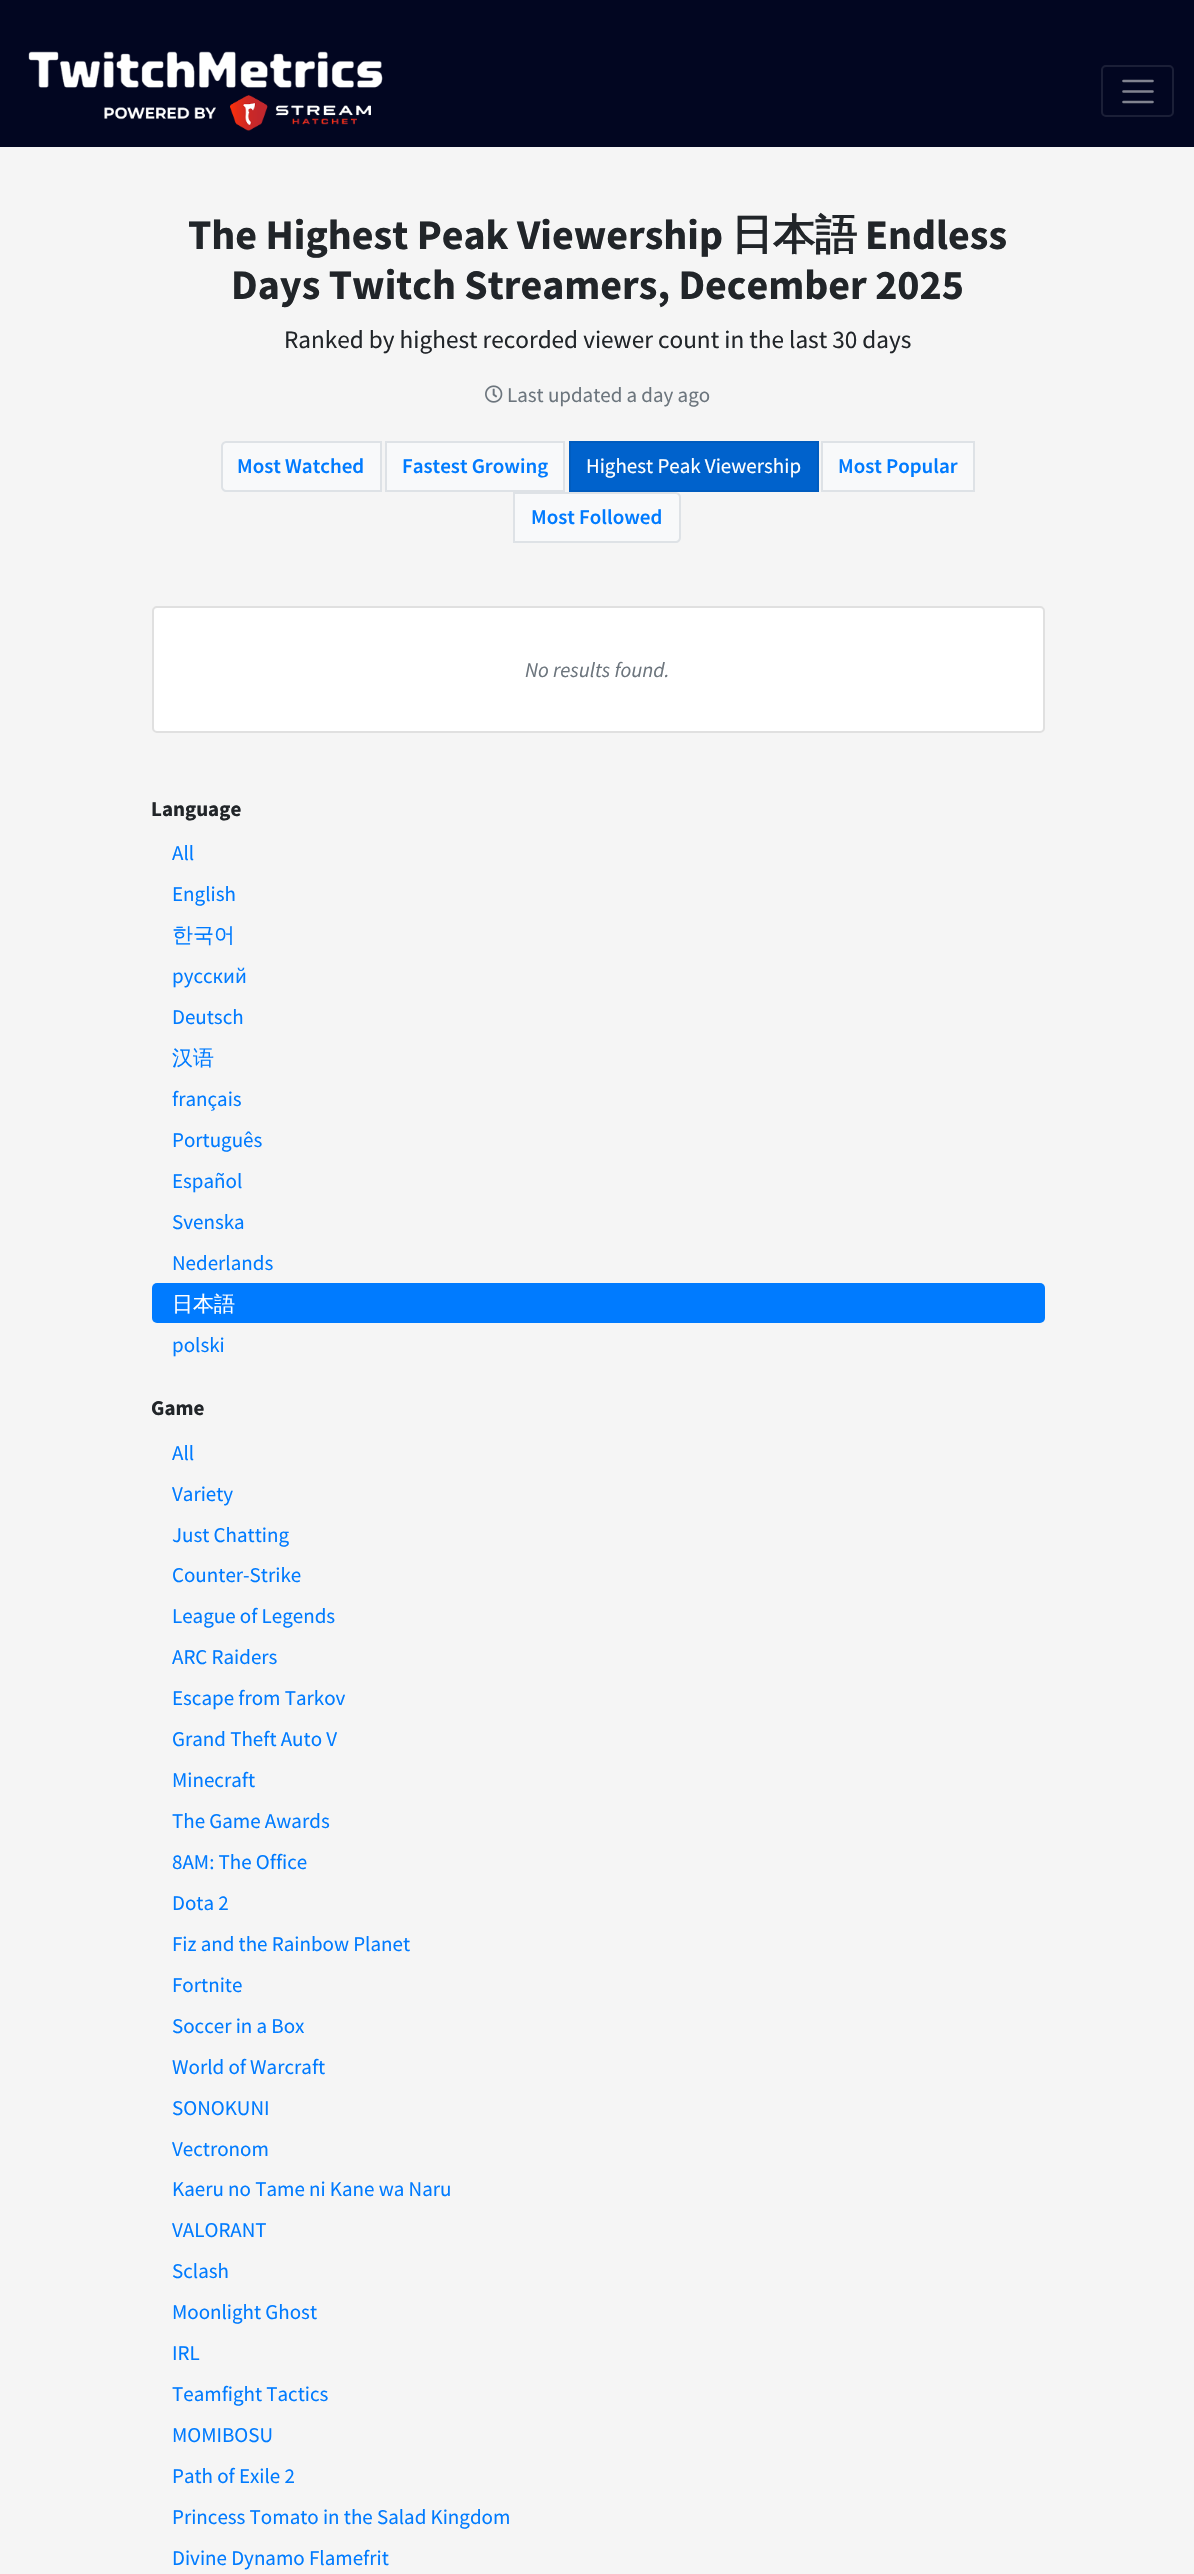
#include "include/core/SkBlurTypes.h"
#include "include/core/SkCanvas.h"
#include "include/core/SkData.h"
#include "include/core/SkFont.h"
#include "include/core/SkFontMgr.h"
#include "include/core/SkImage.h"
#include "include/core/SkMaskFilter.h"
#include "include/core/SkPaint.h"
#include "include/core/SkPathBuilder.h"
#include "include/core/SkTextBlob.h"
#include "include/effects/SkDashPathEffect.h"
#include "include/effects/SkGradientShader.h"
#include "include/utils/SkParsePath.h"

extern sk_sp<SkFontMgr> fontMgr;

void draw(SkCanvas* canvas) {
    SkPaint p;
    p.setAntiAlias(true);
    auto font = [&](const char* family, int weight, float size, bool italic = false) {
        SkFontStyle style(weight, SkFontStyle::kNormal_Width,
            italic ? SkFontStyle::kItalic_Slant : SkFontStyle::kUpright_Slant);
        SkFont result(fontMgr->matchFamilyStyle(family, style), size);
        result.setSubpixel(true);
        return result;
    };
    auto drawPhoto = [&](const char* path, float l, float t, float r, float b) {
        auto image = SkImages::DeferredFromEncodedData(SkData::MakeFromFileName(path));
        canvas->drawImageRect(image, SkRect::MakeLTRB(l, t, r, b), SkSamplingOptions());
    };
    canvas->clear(0xFFF5F5F5);
    p.setColor(0xFF020621);
    canvas->drawRect(SkRect::MakeLTRB(0, 0, 1194, 147), p);
    drawPhoto("media/1.png", 28, 51, 383, 131);
    p.setStyle(SkPaint::kStroke_Style);
    p.setStrokeWidth(2);
    p.setColor(0xFF1B1F37);
    canvas->drawRoundRect(SkRect::MakeLTRB(1102, 66, 1173, 116), 4, 4, p);
    p.setStrokeWidth(2.6f);
    p.setStrokeCap(SkPaint::kRound_Cap);
    p.setColor(0xFF818390);
    canvas->drawPath(SkPathBuilder().moveTo(1123.5f, 81).lineTo(1152.5f, 81).moveTo(1123.5f, 91.5f).lineTo(1152.5f, 91.5f).moveTo(1123.5f, 102).lineTo(1152.5f, 102).detach(), p);
    auto font1 = font("Source Sans Pro", 700, 42);
    p.setStyle(SkPaint::kFill_Style);
    p.setColor(0xFF212529);
    canvas->drawString("The Highest Peak Viewership", 188, 249, font1, p);
    auto font2 = font("WenQuanYi Zen Hei", 700, 42);
    canvas->drawString("日本語", 731, 249, font2, p);
    canvas->drawString("Endless", 865, 249, font1, p);
    canvas->drawString("Days Twitch Streamers, December 2025", 231, 299, font1, p);
    auto font3 = font("Source Sans Pro", 400, 25.2f);
    canvas->drawString("Ranked by highest recorded viewer count in the last 30 days", 284, 348, font3, p);
    drawPhoto("media/2.png", 485, 385, 503, 403);
    auto font4 = font("Source Sans Pro", 400, 21);
    p.setColor(0xFF6C757D);
    canvas->drawString("Last updated a day ago", 507, 402, font4, p);
    p.setColor(0xFFF8F9FA);
    canvas->drawPath(SkPathBuilder().moveTo(226, 442).lineTo(381, 442).lineTo(381, 491).lineTo(226, 491).cubicTo(224, 491, 222, 489, 222, 487).lineTo(222, 446).cubicTo(222, 444, 224, 442, 226, 442).close().detach(), p);
    p.setStyle(SkPaint::kStroke_Style);
    p.setStrokeWidth(2);
    p.setStrokeCap(SkPaint::kButt_Cap);
    p.setColor(0xFFDEE2E6);
    canvas->drawPath(SkPathBuilder().moveTo(226, 442).lineTo(381, 442).lineTo(381, 491).lineTo(226, 491).cubicTo(224, 491, 222, 489, 222, 487).lineTo(222, 446).cubicTo(222, 444, 224, 442, 226, 442).close().detach(), p);
    auto font5 = font("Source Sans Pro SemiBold", 600, 21);
    p.setStyle(SkPaint::kFill_Style);
    p.setColor(0xFF007BFF);
    canvas->drawString("Most Watched", 237, 473, font5, p);
    p.setColor(0xFFF8F9FA);
    canvas->drawRect(SkRect::MakeLTRB(386, 442, 564, 491), p);
    p.setStyle(SkPaint::kStroke_Style);
    p.setColor(0xFFDEE2E6);
    canvas->drawRect(SkRect::MakeLTRB(386, 442, 564, 491), p);
    p.setStyle(SkPaint::kFill_Style);
    p.setColor(0xFF007BFF);
    canvas->drawString("Fastest Growing", 402, 473, font5, p);
    p.setColor(0xFF0062CC);
    canvas->drawRect(SkRect::MakeLTRB(570, 442, 818, 491), p);
    p.setStyle(SkPaint::kStroke_Style);
    p.setColor(0xFF005CBF);
    canvas->drawRect(SkRect::MakeLTRB(570, 442, 818, 491), p);
    p.setStyle(SkPaint::kFill_Style);
    p.setColor(0xFFFFFFFF);
    canvas->drawString("Highest Peak Viewership", 586, 473, font4, p);
    p.setColor(0xFFF8F9FA);
    canvas->drawRect(SkRect::MakeLTRB(822, 442, 974, 491), p);
    p.setStyle(SkPaint::kStroke_Style);
    p.setColor(0xFFDEE2E6);
    canvas->drawRect(SkRect::MakeLTRB(822, 442, 974, 491), p);
    p.setStyle(SkPaint::kFill_Style);
    p.setColor(0xFF007BFF);
    canvas->drawString("Most Popular", 838, 473, font5, p);
    p.setColor(0xFFF8F9FA);
    canvas->drawPath(SkPathBuilder().moveTo(514, 493).lineTo(676, 493).cubicTo(678, 493, 680, 495, 680, 497).lineTo(680, 538).cubicTo(680, 540, 678, 542, 676, 542).lineTo(514, 542).close().detach(), p);
    p.setStyle(SkPaint::kStroke_Style);
    p.setColor(0xFFDEE2E6);
    canvas->drawPath(SkPathBuilder().moveTo(514, 493).lineTo(676, 493).cubicTo(678, 493, 680, 495, 680, 497).lineTo(680, 538).cubicTo(680, 540, 678, 542, 676, 542).lineTo(514, 542).close().detach(), p);
    p.setStyle(SkPaint::kFill_Style);
    p.setColor(0xFF007BFF);
    canvas->drawString("Most Followed", 531, 524, font5, p);
    p.setColor(0xFFFFFFFF);
    canvas->drawRoundRect(SkRect::MakeLTRB(152, 606, 1045, 733), 5, 5, p);
    p.setStyle(SkPaint::kStroke_Style);
    p.setColor(0x1F000000);
    canvas->drawRoundRect(SkRect::MakeLTRB(153, 607, 1044, 732), 4, 4, p);
    auto font6 = font("Source Sans Pro", 400, 21, true);
    p.setStyle(SkPaint::kFill_Style);
    p.setColor(0xFF6C757D);
    canvas->drawString("No results found.", 525, 677, font6, p);
    auto font7 = font("Source Sans Pro", 700, 21);
    p.setColor(0xFF212529);
    canvas->drawString("Language", 151, 816, font7, p);
    p.setColor(0xFF007BFF);
    canvas->drawString("All", 172, 860, font4, p);
    canvas->drawString("English", 172, 901, font4, p);
    auto font8 = font("WenQuanYi Zen Hei", 500, 21);
    canvas->drawString("한국어", 172, 942, font8, p);
    canvas->drawString("русский", 172, 983, font4, p);
    canvas->drawString("Deutsch", 172, 1024, font4, p);
    canvas->drawString("汉语", 172, 1065, font8, p);
    {
        const struct { const char* s; float x, y; } items[] = {
            {"français", 172, 1106},
            {"Português", 172, 1147},
            {"Español", 172, 1188},
            {"Svenska", 172, 1229},
            {"Nederlands", 172, 1270},
        };
        for (auto [s, x, y] : items) {
            canvas->drawString(s, x, y, font4, p);
        }
    }
    canvas->drawRoundRect(SkRect::MakeLTRB(152, 1283, 1045, 1323), 5, 5, p);
    p.setColor(0xFFFFFFFF);
    canvas->drawString("日本語", 172, 1311, font8, p);
    p.setColor(0xFF007BFF);
    canvas->drawString("polski", 172, 1352, font4, p);
    p.setColor(0xFF212529);
    canvas->drawString("Game", 151, 1415, font7, p);
    p.setColor(0xFF007BFF);
    {
        const struct { const char* s; float x, y; } items[] = {
            {"All", 172, 1460},
            {"Variety", 172, 1501},
            {"Just Chatting", 172, 1542},
            {"Counter-Strike", 172, 1582},
            {"League of Legends", 172, 1623},
            {"ARC Raiders", 172, 1664},
            {"Escape from Tarkov", 172, 1705},
            {"Grand Theft Auto V", 172, 1746},
            {"Minecraft", 172, 1787},
            {"The Game Awards", 172, 1828},
            {"8AM: The Office", 172, 1869},
            {"Dota 2", 172, 1910},
            {"Fiz and the Rainbow Planet", 172, 1951},
            {"Fortnite", 172, 1992},
            {"Soccer in a Box", 172, 2033},
            {"World of Warcraft", 172, 2074},
            {"SONOKUNI", 172, 2115},
            {"Vectronom", 172, 2156},
            {"Kaeru no Tame ni Kane wa Naru", 172, 2196},
            {"VALORANT", 172, 2237},
            {"Sclash", 172, 2278},
            {"Moonlight Ghost", 172, 2319},
            {"IRL", 172, 2360},
            {"Teamfight Tactics", 172, 2401},
            {"MOMIBOSU", 172, 2442},
            {"Path of Exile 2", 172, 2483},
            {"Princess Tomato in the Salad Kingdom", 172, 2524},
            {"Divine Dynamo Flamefrit", 172, 2565},
        };
        for (auto [s, x, y] : items) {
            canvas->drawString(s, x, y, font4, p);
        }
    }
}
